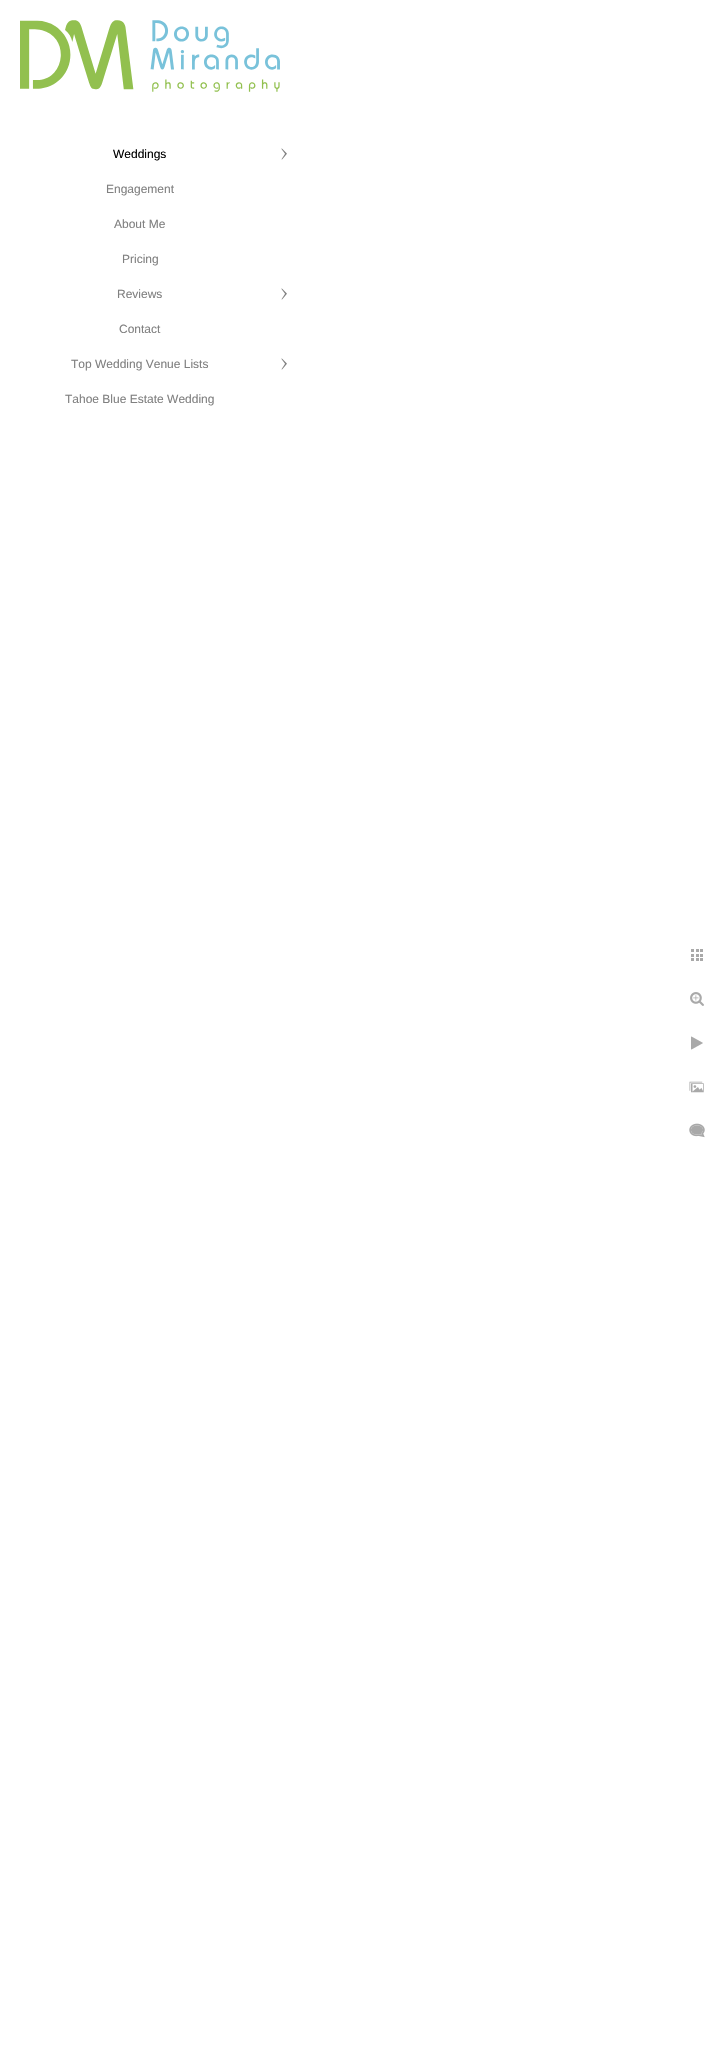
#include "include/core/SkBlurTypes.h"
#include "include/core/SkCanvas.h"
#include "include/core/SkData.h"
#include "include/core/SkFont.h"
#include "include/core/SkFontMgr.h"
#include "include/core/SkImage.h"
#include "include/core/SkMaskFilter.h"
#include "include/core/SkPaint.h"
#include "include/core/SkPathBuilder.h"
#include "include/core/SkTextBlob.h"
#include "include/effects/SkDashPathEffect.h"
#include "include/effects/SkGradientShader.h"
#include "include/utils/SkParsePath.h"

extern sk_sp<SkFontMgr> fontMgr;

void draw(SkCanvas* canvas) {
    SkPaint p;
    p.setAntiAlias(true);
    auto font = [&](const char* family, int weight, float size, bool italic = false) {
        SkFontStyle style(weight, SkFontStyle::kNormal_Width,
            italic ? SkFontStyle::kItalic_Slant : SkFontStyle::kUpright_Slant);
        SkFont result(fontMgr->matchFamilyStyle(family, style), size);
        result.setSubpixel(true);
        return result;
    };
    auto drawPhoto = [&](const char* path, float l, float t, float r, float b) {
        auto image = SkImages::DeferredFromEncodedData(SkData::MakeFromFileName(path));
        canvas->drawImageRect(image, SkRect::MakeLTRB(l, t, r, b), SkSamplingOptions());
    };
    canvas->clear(0xFFFFFFFF);
    drawPhoto("media/1.png", 20, 20, 280, 92);
    auto font1 = font("Liberation Sans", 400, 12);
    p.setColor(0xFF000000);
    canvas->drawString("Weddings", 113, 158, font1, p);
    drawPhoto("media/2.png", 281, 148, 287, 160);
    p.setColor(0xFF808080);
    {
        const struct { const char* s; float x, y; } items[] = {
            {"Engagement", 106, 193},
            {"About Me", 114, 228},
            {"Pricing", 122, 263},
            {"Reviews", 117, 298},
        };
        for (auto [s, x, y] : items) {
            canvas->drawString(s, x, y, font1, p);
        }
    }
    drawPhoto("media/2.png", 281, 288, 287, 300);
    canvas->drawString("Contact", 119, 333, font1, p);
    canvas->drawString("Top Wedding Venue Lists", 71, 368, font1, p);
    drawPhoto("media/2.png", 281, 358, 287, 370);
    canvas->drawString("Tahoe Blue Estate Wedding", 65, 403, font1, p);
    drawPhoto("media/3.png", 691, 949, 703, 961);
    drawPhoto("media/4.png", 690, 992, 704, 1006);
    drawPhoto("media/5.png", 691, 1036, 703, 1050);
    drawPhoto("media/6.png", 689, 1081, 704, 1093);
    drawPhoto("media/7.png", 689, 1123, 705, 1138);
}
